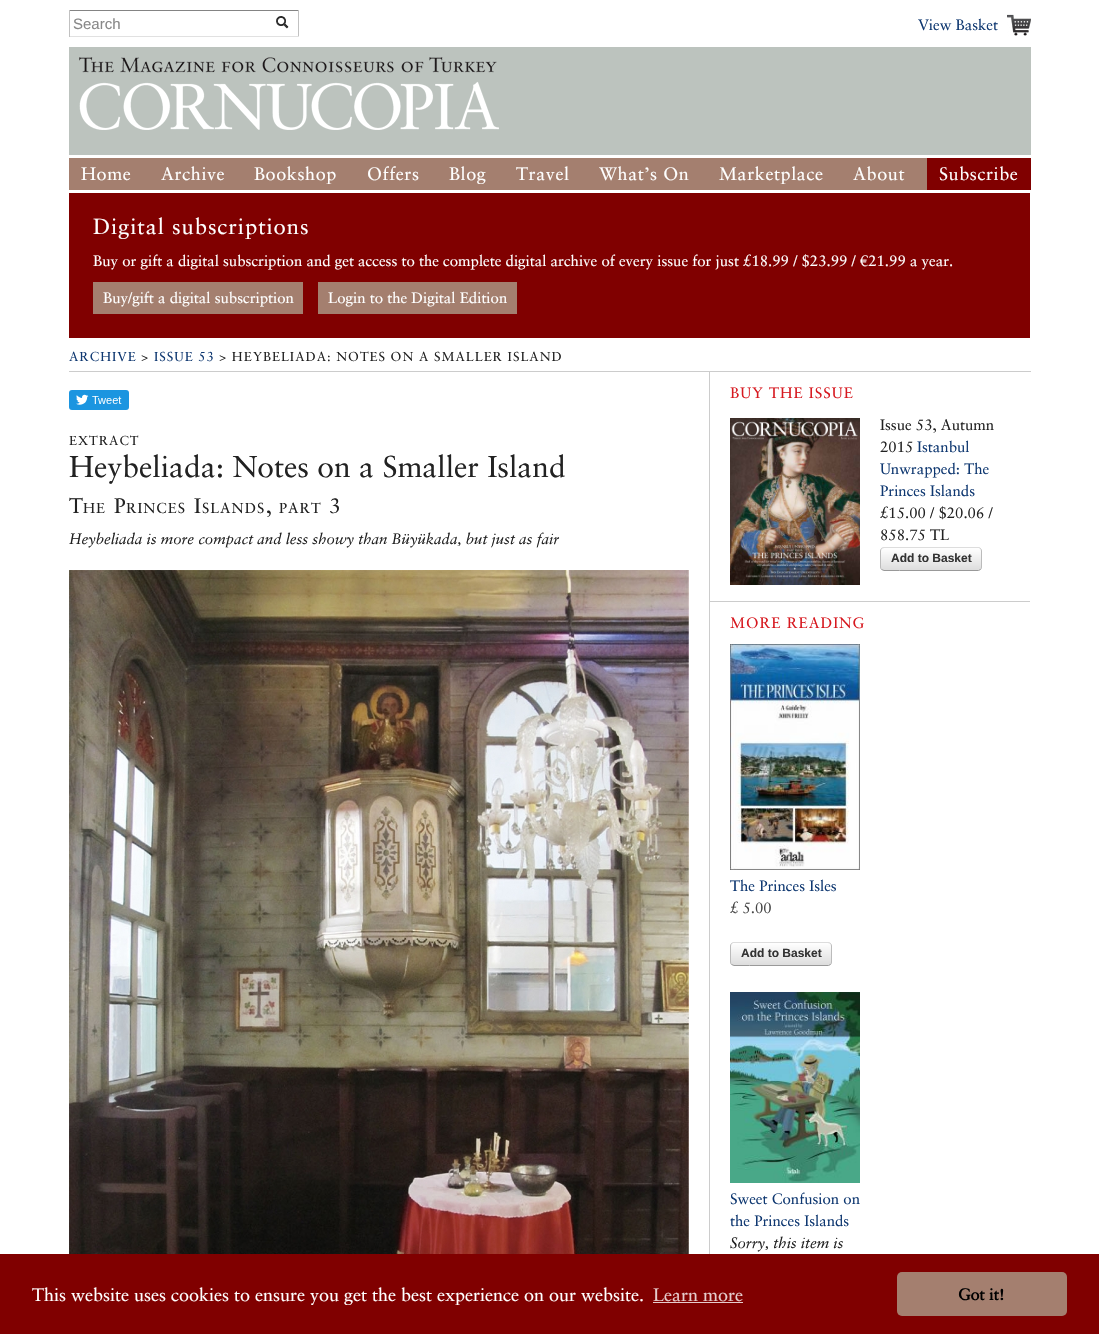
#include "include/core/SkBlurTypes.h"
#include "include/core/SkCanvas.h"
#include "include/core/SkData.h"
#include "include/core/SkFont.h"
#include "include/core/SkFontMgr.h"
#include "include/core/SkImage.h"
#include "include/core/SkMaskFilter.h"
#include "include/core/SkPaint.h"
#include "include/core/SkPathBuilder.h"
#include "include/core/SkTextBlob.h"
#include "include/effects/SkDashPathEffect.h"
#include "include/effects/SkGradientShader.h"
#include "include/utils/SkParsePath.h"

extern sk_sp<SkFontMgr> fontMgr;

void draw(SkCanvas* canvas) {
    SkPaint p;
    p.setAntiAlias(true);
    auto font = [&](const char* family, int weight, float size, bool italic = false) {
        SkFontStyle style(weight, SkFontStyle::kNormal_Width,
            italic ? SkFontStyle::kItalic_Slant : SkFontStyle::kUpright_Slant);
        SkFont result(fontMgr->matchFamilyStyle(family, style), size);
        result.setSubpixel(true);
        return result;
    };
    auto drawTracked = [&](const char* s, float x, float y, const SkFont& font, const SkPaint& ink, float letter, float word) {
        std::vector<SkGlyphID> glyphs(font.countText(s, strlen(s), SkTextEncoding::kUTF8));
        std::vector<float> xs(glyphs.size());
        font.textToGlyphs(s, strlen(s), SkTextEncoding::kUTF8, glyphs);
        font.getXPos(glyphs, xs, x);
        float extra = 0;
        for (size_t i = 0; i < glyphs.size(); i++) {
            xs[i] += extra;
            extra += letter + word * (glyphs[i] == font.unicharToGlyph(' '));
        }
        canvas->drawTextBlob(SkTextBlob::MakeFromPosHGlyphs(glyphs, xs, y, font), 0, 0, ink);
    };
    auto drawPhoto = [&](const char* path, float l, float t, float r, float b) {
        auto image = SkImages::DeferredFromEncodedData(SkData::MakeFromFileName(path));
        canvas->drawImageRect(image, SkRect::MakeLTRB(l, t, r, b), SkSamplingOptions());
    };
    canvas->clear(0xFFFFFFFF);
    {
        const struct { float l, t, r, b; SkColor color; } items[] = {
            {69, 10, 299, 11, 0xFF848484},
            {298, 10, 299, 37, 0xFFC1C1C1},
            {69, 36, 299, 37, 0xFFE1E1E1},
            {69, 10, 70, 37, 0xFFC1C1C1},
        };
        for (auto [l, t, r, b, color] : items) {
            p.setColor(color);
            canvas->drawRect(SkRect::MakeLTRB(l, t, r, b), p);
        }
    }
    auto font1 = font("Liberation Sans", 400, 15);
    p.setColor(0xFF888888);
    canvas->drawString("Search", 73, 29, font1, p);
    drawPhoto("media/1.png", 276, 16, 289, 29);
    drawPhoto("media/2.png", 1007, 14, 1031, 36);
    auto font2 = font("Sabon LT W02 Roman", 400, 15);
    p.setColor(0xFF0F3871);
    canvas->drawString("View Basket", 918, 30, font2, p);
    p.setColor(0xFFBCC3BE);
    canvas->drawRect(SkRect::MakeLTRB(69, 47, 1031, 155), p);
    drawPhoto("media/3.png", 79, 57, 499, 130);
    p.setColor(0xFFA47F6F);
    canvas->drawRect(SkRect::MakeLTRB(69, 158, 927, 190), p);
    auto font3 = font("Sabon LT W02 Roman", 400, 18);
    p.setColor(0xFFFFFFFF);
    {
        const struct { const char* s; float x, y; } items[] = {
            {"Home", 81, 180},
            {"Archive", 161, 180},
            {"Bookshop", 254, 180},
            {"Offers", 367, 180},
            {"Blog", 449, 180},
            {"Travel", 516, 180},
            {"What’s On", 599, 180},
            {"Marketplace", 719, 180},
            {"About", 853, 180},
        };
        for (auto [s, x, y] : items) {
            drawTracked(s, x, y, font3, p, 0.6f, 0);
        }
    }
    p.setColor(0xFF800000);
    canvas->drawRect(SkRect::MakeLTRB(927, 158, 1031, 190), p);
    p.setColor(0xFFFFFFFF);
    drawTracked("Subscribe", 939, 180, font3, p, 0.6f, 0);
    p.setColor(0xFF800000);
    canvas->drawRect(SkRect::MakeLTRB(69, 193, 1030, 338), p);
    auto font4 = font("Sabon LT W02 Roman", 400, 22);
    p.setColor(0xFFFFFFFF);
    drawTracked("Digital subscriptions", 93, 234, font4, p, 1, 0);
    canvas->drawString("Buy or gift a digital subscription and get access to the complete digital archive of every issue for just £18.99 / $23.99 / €21.99 a year.", 93, 266, font2, p);
    p.setColor(0xFFA47F6F);
    canvas->drawRect(SkRect::MakeLTRB(93, 282, 303, 314), p);
    p.setColor(0xFFFFFFFF);
    canvas->drawString("Buy/gift a digital subscription", 103, 303, font2, p);
    p.setColor(0xFFA47F6F);
    canvas->drawRect(SkRect::MakeLTRB(318, 282, 517, 314), p);
    p.setColor(0xFFFFFFFF);
    canvas->drawString("Login to the Digital Edition", 328, 303, font2, p);
    p.setColor(0xFFCCCCCC);
    canvas->drawRect(SkRect::MakeLTRB(69, 371, 1031, 372), p);
    auto font5 = font("Sabon LT W02 Roman", 400, 13);
    p.setColor(0xFF0F3871);
    drawTracked("ARCHIVE", 69, 361, font5, p, 1, 0);
    p.setColor(0xFF222222);
    drawTracked(">", 141, 361, font5, p, 1, 0);
    p.setColor(0xFF0F3871);
    drawTracked("ISSUE 53", 154, 361, font5, p, 1, 0);
    p.setColor(0xFF222222);
    drawTracked("> HEYBELIADA: NOTES ON A SMALLER ISLAND", 219, 361, font5, p, 1, 0);
    drawPhoto("media/4.png", 69, 390, 129, 410);
    drawTracked("EXTRACT", 69, 445, font5, p, 1, 0);
    auto font6 = font("Sabon LT W02 Roman", 400, 30);
    canvas->drawString("Heybeliada: Notes on a Smaller Island", 69, 477, font6, p);
    auto font7 = font("Sabon LT W02 Roman", 400, 21);
    drawTracked("T", 69, 513, font7, p, 1, 0);
    auto font8 = font("Sabon LT W02 Roman", 400, 14.5f);
    drawTracked("HE", 83, 513, font8, p, 1, 0);
    drawTracked("P", 114, 513, font7, p, 1, 0);
    drawTracked("RINCES", 126, 513, font8, p, 1, 0);
    drawTracked("I", 194, 513, font7, p, 1, 0);
    drawTracked("SLANDS", 202, 513, font8, p, 1, 0);
    drawTracked(",", 266, 513, font7, p, 1, 0);
    drawTracked("PART", 279, 513, font8, p, 1, 0);
    drawTracked("3", 329, 513, font7, p, 1, 0);
    auto font9 = font("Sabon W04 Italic", 400, 15, true);
    canvas->drawString("Heybeliada is more compact and less showy than Büyükada, but just as fair", 69, 544, font9, p);
    drawPhoto("media/5.png", 69, 570, 689, 1254);
    p.setColor(0xFFCCCCCC);
    canvas->drawRect(SkRect::MakeLTRB(709, 372, 710, 1254), p);
    canvas->drawRect(SkRect::MakeLTRB(710, 601, 1030, 602), p);
    p.setColor(0xFFD71920);
    drawTracked("BUY THE ISSUE", 730, 398, font2, p, 1, 0);
    drawPhoto("media/6.png", 730, 418, 860, 585);
    p.setColor(0xFF222222);
    canvas->drawString("Issue 53, Autumn", 880, 430, font2, p);
    canvas->drawString("2015", 880, 452, font2, p);
    p.setColor(0xFF0F3871);
    {
        const struct { const char* s; float x, y; } items[] = {
            {"Istanbul", 917, 452},
            {"Unwrapped: The", 880, 474},
            {"Princes Islands", 880, 496},
        };
        for (auto [s, x, y] : items) {
            canvas->drawString(s, x, y, font2, p);
        }
    }
    p.setColor(0xFF222222);
    canvas->drawString("£15.00 / $20.06 /", 880, 518, font2, p);
    canvas->drawString("858.75 TL", 880, 540, font2, p);
    canvas->save();
    canvas->clipPath(SkPathBuilder().moveTo(884, 547).lineTo(978, 547).cubicTo(980, 547, 982, 549, 982, 551).lineTo(982, 567).cubicTo(982, 569, 980, 571, 978, 571).lineTo(884, 571).cubicTo(882, 571, 880, 569, 880, 567).lineTo(880, 551).cubicTo(880, 549, 882, 547, 884, 547).close().detach(), true);
    {
        const SkColor colors[] = {0xFFFFFFFF, 0xFFDDDDDD};
        const float stops[] = {0, 1};
        const SkPoint ends[] = {{881, 526}, {881, 548}};
        p.setShader(SkGradientShader::MakeLinear(ends, colors, stops, 2, SkTileMode::kClamp));
        p.setAlpha(255);
    }
    canvas->drawRect(SkRect::MakeLTRB(880, 547, 982, 548), p);
    {
        const SkColor colors[] = {0xFFFFFFFF, 0xFFDDDDDD};
        const float stops[] = {0, 1};
        const SkPoint ends[] = {{881, 548}, {881, 570}};
        p.setShader(SkGradientShader::MakeLinear(ends, colors, stops, 2, SkTileMode::kClamp));
        p.setAlpha(255);
    }
    canvas->drawRect(SkRect::MakeLTRB(880, 548, 982, 570), p);
    canvas->restore();
    p.setStyle(SkPaint::kStroke_Style);
    p.setStrokeWidth(1);
    p.setShader(nullptr);
    p.setColor(0xFFDDDDDD);
    canvas->drawPath(SkPathBuilder().moveTo(881.5f, 548.5f).lineTo(884, 547.5f).lineTo(978.5f, 547.5f).lineTo(980.5f, 548.5f).detach(), p);
    p.setColor(0xFFBBBBBB);
    canvas->drawPath(SkPathBuilder().moveTo(980.5f, 548.5f).cubicTo(981, 549, 981.5f, 550, 981.5f, 551).lineTo(981.5f, 567).cubicTo(981.5f, 568, 981, 569, 980.5f, 569.5f).detach(), p);
    p.setColor(0xFF999999);
    canvas->drawPath(SkPathBuilder().moveTo(980.5f, 569.5f).lineTo(978.5f, 570.5f).lineTo(899.5f, 570.5f).lineTo(884, 570.5f).lineTo(881.5f, 569.5f).detach(), p);
    p.setColor(0xFFBBBBBB);
    canvas->drawPath(SkPathBuilder().moveTo(881.5f, 569.5f).cubicTo(881, 569, 880.5f, 568, 880.5f, 567).lineTo(880.5f, 551).cubicTo(880.5f, 550, 881, 549, 881.5f, 548.5f).detach(), p);
    auto font10 = font("Liberation Sans", 700, 12);
    p.setStyle(SkPaint::kFill_Style);
    p.setColor(0xFF333333);
    canvas->drawString("Add to Basket", 891, 562, font10, p);
    p.setColor(0xFFD71920);
    drawTracked("MORE READING", 730, 628, font2, p, 1, 0);
    drawPhoto("media/7.png", 730, 644, 860, 870);
    p.setColor(0xFF0F3871);
    canvas->drawString("The Princes Isles", 730, 891, font2, p);
    p.setColor(0xFF444444);
    canvas->drawString("£ 5.00", 730, 913, font2, p);
    canvas->save();
    canvas->clipPath(SkPathBuilder().moveTo(734, 942).lineTo(828, 942).cubicTo(830, 942, 832, 944, 832, 946).lineTo(832, 962).cubicTo(832, 964, 830, 966, 828, 966).lineTo(734, 966).cubicTo(732, 966, 730, 964, 730, 962).lineTo(730, 946).cubicTo(730, 944, 732, 942, 734, 942).close().detach(), true);
    {
        const SkColor colors[] = {0xFFFFFFFF, 0xFFDDDDDD};
        const float stops[] = {0, 1};
        const SkPoint ends[] = {{731, 921}, {731, 943}};
        p.setShader(SkGradientShader::MakeLinear(ends, colors, stops, 2, SkTileMode::kClamp));
        p.setAlpha(255);
    }
    canvas->drawRect(SkRect::MakeLTRB(730, 942, 832, 943), p);
    {
        const SkColor colors[] = {0xFFFFFFFF, 0xFFDDDDDD};
        const float stops[] = {0, 1};
        const SkPoint ends[] = {{731, 943}, {731, 965}};
        p.setShader(SkGradientShader::MakeLinear(ends, colors, stops, 2, SkTileMode::kClamp));
        p.setAlpha(255);
    }
    canvas->drawRect(SkRect::MakeLTRB(730, 943, 832, 965), p);
    canvas->restore();
    p.setStyle(SkPaint::kStroke_Style);
    p.setShader(nullptr);
    p.setColor(0xFFDDDDDD);
    canvas->drawPath(SkPathBuilder().moveTo(731.5f, 943.5f).lineTo(733.5f, 942.5f).lineTo(812.5f, 942.5f).lineTo(828, 942.5f).lineTo(830.5f, 943.5f).detach(), p);
    p.setColor(0xFFBBBBBB);
    canvas->drawPath(SkPathBuilder().moveTo(830.5f, 943.5f).cubicTo(831, 944, 831.5f, 945, 831.5f, 946).lineTo(831.5f, 962).cubicTo(831.5f, 963, 831, 964, 830.5f, 964.5f).detach(), p);
    p.setColor(0xFF999999);
    canvas->drawPath(SkPathBuilder().moveTo(830.5f, 964.5f).lineTo(828.5f, 965.5f).lineTo(749.5f, 965.5f).lineTo(734, 965.5f).lineTo(731.5f, 964.5f).detach(), p);
    p.setColor(0xFFBBBBBB);
    canvas->drawPath(SkPathBuilder().moveTo(731.5f, 964.5f).cubicTo(731, 964, 730.5f, 963, 730.5f, 962).lineTo(730.5f, 946).cubicTo(730.5f, 945, 731, 944, 731.5f, 943.5f).detach(), p);
    p.setStyle(SkPaint::kFill_Style);
    p.setColor(0xFF333333);
    canvas->drawString("Add to Basket", 741, 957, font10, p);
    drawPhoto("media/8.png", 730, 992, 860, 1183);
    p.setColor(0xFF0F3871);
    canvas->drawString("Sweet Confusion on", 730, 1204, font2, p);
    canvas->drawString("the Princes Islands", 730, 1226, font2, p);
    p.setColor(0xFF222222);
    canvas->drawString("Sorry, this item is", 730, 1248, font9, p);
    p.setColor(0xFF800000);
    canvas->drawRect(SkRect::MakeLTRB(0, 1254, 1099, 1334), p);
    p.setColor(0xFFFFFFFF);
    canvas->drawString("This website uses cookies to ensure you get the best experience on our website.", 32, 1301, font3, p);
    p.setColor(0xFFE6CCCC);
    canvas->drawString("Learn more", 653, 1301, font3, p);
    canvas->drawRect(SkRect::MakeLTRB(653, 1302, 743, 1303), p);
    p.setColor(0xFFA47F6F);
    canvas->drawRoundRect(SkRect::MakeLTRB(897, 1272, 1067, 1316), 5, 5, p);
    auto font11 = font("Sabon LT W02 Roman", 700, 16);
    p.setColor(0xFF000000);
    canvas->drawString("Got it!", 958, 1300, font11, p);
}
